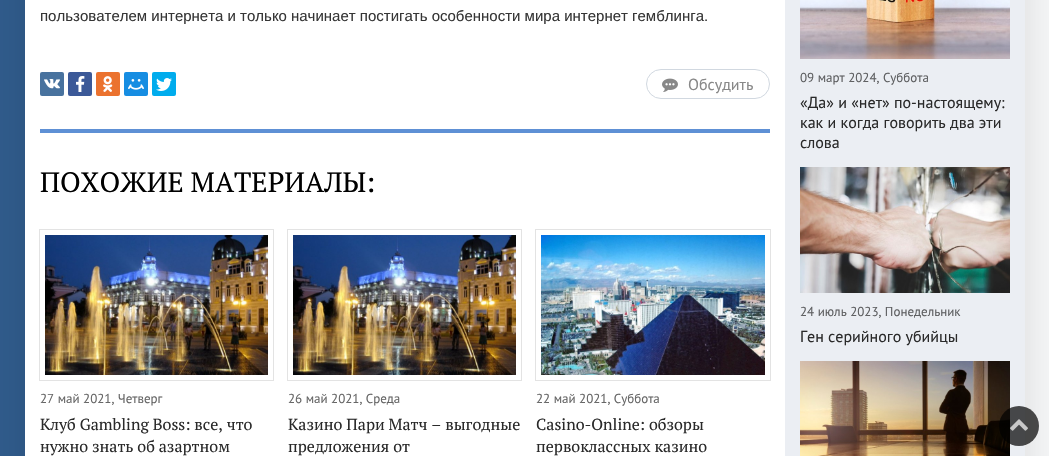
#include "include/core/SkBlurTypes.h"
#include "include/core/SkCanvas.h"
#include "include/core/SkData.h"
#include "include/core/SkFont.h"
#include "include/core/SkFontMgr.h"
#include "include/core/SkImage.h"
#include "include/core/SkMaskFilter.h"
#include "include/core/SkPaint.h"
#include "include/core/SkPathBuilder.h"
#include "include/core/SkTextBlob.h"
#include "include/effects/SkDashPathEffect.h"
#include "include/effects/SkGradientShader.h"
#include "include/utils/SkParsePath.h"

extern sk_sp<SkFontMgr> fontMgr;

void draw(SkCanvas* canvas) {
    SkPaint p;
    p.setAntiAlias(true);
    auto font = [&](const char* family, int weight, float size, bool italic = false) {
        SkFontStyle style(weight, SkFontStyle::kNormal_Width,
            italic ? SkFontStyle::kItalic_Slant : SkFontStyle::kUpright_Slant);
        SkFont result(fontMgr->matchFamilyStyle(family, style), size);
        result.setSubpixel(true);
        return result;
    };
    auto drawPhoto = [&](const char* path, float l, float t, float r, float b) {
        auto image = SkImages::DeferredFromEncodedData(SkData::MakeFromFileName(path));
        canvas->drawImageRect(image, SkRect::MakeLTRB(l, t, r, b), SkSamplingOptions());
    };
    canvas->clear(0xFFF4F5F6);
    p.setColor(0xFF305B8B);
    canvas->drawRect(SkRect::MakeLTRB(0, 0, 25, 456), p);
    p.setColor(0x1A000000);
    p.setMaskFilter(SkMaskFilter::MakeBlur(kNormal_SkBlurStyle, 15));
    canvas->drawRect(SkRect::MakeLTRB(25, -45, 1025, 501), p);
    p.setMaskFilter(nullptr);
    p.setColor(0xFFFFFFFF);
    canvas->drawRect(SkRect::MakeLTRB(25, 0, 785, 456), p);
    auto font1 = font("Liberation Sans", 400, 15);
    p.setColor(0xFF363636);
    canvas->drawString("пользователем интернета и только начинает постигать особенности мира интернет гемблинга.", 40, 21, font1, p);
    p.setColor(0xFF48729E);
    canvas->drawRoundRect(SkRect::MakeLTRB(40, 72, 64, 96), 2, 2, p);
    drawPhoto("media/1.png", 44, 79, 60, 89);
    p.setColor(0xFF3B5998);
    canvas->drawRoundRect(SkRect::MakeLTRB(68, 72, 92, 96), 2, 2, p);
    drawPhoto("media/2.png", 76, 76, 85, 92);
    p.setColor(0xFFEB722E);
    canvas->drawRoundRect(SkRect::MakeLTRB(96, 72, 120, 96), 2, 2, p);
    drawPhoto("media/3.png", 103, 76, 113, 92);
    p.setColor(0xFF168DE2);
    canvas->drawRoundRect(SkRect::MakeLTRB(124, 72, 148, 96), 2, 2, p);
    drawPhoto("media/4.png", 128, 79, 144, 90);
    p.setColor(0xFF00ACED);
    canvas->drawRoundRect(SkRect::MakeLTRB(152, 72, 176, 96), 2, 2, p);
    drawPhoto("media/5.png", 156, 78, 172, 91);
    p.setStyle(SkPaint::kStroke_Style);
    p.setStrokeWidth(1);
    p.setColor(0xFFD1D8E0);
    canvas->drawRoundRect(SkRect::MakeLTRB(646.5f, 69.5f, 769.5f, 98.5f), 14.5f, 14.5f, p);
    drawPhoto("media/6.png", 662, 78, 678, 92);
    auto font2 = font("PT Sans", 400, 16);
    p.setStyle(SkPaint::kFill_Style);
    p.setColor(0xFF888888);
    canvas->drawString("Обсудить", 688, 90, font2, p);
    p.setColor(0xFF5E90D5);
    canvas->drawRect(SkRect::MakeLTRB(40, 129, 770, 133), p);
    auto font3 = font("PT Serif", 400, 28);
    p.setColor(0xFF000000);
    canvas->drawString("ПОХОЖИЕ МАТЕРИАЛЫ:", 40, 192, font3, p);
    p.setStyle(SkPaint::kStroke_Style);
    p.setColor(0xFFE3E3E3);
    canvas->drawRect(SkRect::MakeLTRB(39.5f, 229.5f, 273.5f, 380.5f), p);
    drawPhoto("media/7.png", 45, 235, 268, 375);
    auto font4 = font("PT Sans", 400, 13);
    p.setStyle(SkPaint::kFill_Style);
    p.setColor(0xFF666666);
    canvas->drawString("27 май 2021, Четверг", 40, 403, font4, p);
    auto font5 = font("PT Serif", 400, 16);
    p.setColor(0xFF2A2A2A);
    canvas->drawString("Клуб Gambling Boss: все, что", 40, 430, font5, p);
    canvas->drawString("нужно знать об азартном", 40, 452, font5, p);
    p.setStyle(SkPaint::kStroke_Style);
    p.setColor(0xFFE3E3E3);
    canvas->drawRect(SkRect::MakeLTRB(287.5f, 229.5f, 521.5f, 380.5f), p);
    drawPhoto("media/7.png", 293, 235, 516, 375);
    p.setStyle(SkPaint::kFill_Style);
    p.setColor(0xFF666666);
    canvas->drawString("26 май 2021, Среда", 288, 403, font4, p);
    p.setColor(0xFF2A2A2A);
    canvas->drawString("Казино Пари Матч – выгодные", 288, 430, font5, p);
    canvas->drawString("предложения от", 288, 452, font5, p);
    p.setStyle(SkPaint::kStroke_Style);
    p.setColor(0xFFE3E3E3);
    canvas->drawRect(SkRect::MakeLTRB(535.5f, 229.5f, 770.5f, 380.5f), p);
    drawPhoto("media/8.png", 541, 235, 765, 375);
    p.setStyle(SkPaint::kFill_Style);
    p.setColor(0xFF666666);
    canvas->drawString("22 май 2021, Суббота", 536, 403, font4, p);
    p.setColor(0xFF2A2A2A);
    canvas->drawString("Casino-Online: обзоры", 536, 430, font5, p);
    canvas->drawString("первоклассных казино", 536, 452, font5, p);
    p.setColor(0xFFEBEEF3);
    canvas->drawRect(SkRect::MakeLTRB(785, 0, 1025, 456), p);
    drawPhoto("media/9.png", 800, 0, 1010, 59);
    p.setColor(0xFF5E5F61);
    canvas->drawString("09 март 2024, Суббота", 800, 82, font4, p);
    p.setColor(0xFF2A2A2A);
    {
        const struct { const char* s; float x, y; } items[] = {
            {"«Да» и «нет» по-настоящему:", 800, 108},
            {"как и когда говорить два эти", 800, 128},
            {"слова", 800, 148},
        };
        for (auto [s, x, y] : items) {
            canvas->drawString(s, x, y, font2, p);
        }
    }
    drawPhoto("media/10.png", 800, 167, 1010, 293);
    p.setColor(0xFF5E5F61);
    canvas->drawString("24 июль 2023, Понедельник", 800, 316, font4, p);
    p.setColor(0xFF2A2A2A);
    canvas->drawString("Ген серийного убийцы", 800, 342, font2, p);
    drawPhoto("media/11.png", 800, 361, 1010, 456);
    p.setColor(0xB3000000);
    canvas->drawCircle(1019, 426, 20, p);
    drawPhoto("media/12.png", 1010, 419, 1028, 431);
}
